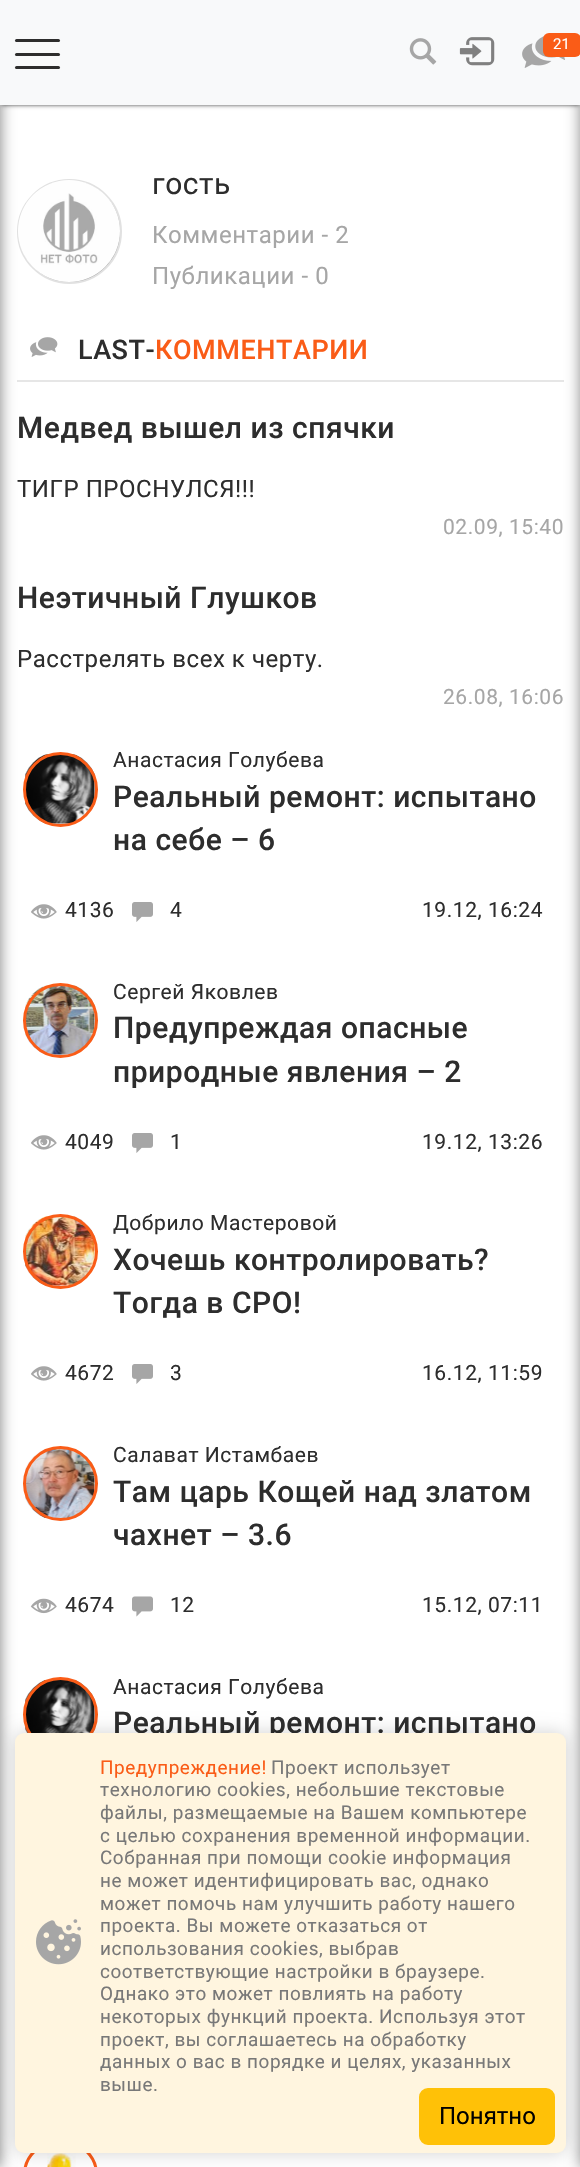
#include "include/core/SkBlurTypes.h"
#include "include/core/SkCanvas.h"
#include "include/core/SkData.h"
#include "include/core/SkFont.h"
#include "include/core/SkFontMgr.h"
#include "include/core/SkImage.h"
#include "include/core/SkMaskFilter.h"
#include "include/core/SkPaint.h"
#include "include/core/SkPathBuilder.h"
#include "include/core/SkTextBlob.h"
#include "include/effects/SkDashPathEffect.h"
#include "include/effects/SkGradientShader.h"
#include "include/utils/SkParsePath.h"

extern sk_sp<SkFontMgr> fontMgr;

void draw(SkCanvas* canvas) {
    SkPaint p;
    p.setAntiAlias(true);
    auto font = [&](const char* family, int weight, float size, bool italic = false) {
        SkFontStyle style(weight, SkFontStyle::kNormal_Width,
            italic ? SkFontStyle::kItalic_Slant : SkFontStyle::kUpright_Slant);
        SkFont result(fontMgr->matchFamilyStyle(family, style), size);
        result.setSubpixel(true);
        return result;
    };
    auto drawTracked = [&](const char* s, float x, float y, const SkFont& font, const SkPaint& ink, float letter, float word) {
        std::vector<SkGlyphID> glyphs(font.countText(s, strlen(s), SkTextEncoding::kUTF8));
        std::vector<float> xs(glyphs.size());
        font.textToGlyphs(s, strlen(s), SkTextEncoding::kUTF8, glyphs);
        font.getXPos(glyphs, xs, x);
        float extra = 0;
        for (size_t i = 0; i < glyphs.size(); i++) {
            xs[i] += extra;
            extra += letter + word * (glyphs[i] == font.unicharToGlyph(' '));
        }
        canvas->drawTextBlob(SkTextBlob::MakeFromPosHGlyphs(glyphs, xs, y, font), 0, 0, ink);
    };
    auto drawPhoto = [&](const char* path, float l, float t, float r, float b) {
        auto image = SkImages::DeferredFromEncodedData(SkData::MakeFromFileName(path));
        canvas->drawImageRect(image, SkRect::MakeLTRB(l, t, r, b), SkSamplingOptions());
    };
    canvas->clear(0xFFFFFFFF);
    p.setColor(0xFFA6A6A6);
    canvas->drawCircle(69.5f, 231.5f, 51.5f, p);
    p.setStyle(SkPaint::kStroke_Style);
    p.setStrokeWidth(2);
    p.setColor(0xFFE1E1E1);
    canvas->drawCircle(69.5f, 231.5f, 51.5f, p);
    drawPhoto("media/4.png", 18, 180, 120, 282);
    p.setStyle(SkPaint::kFill_Style);
    p.setColor(0xFFE6E6E6);
    canvas->drawRect(SkRect::MakeLTRB(17, 380, 564, 382), p);
    drawPhoto("media/6.png", 25, 754, 95, 824);
    p.setStyle(SkPaint::kStroke_Style);
    p.setStrokeWidth(3);
    p.setColor(0xFFFA5C17);
    canvas->drawCircle(60.5f, 789.5f, 36, p);
    drawPhoto("media/9.png", 25, 985, 95, 1055);
    canvas->drawCircle(60.5f, 1020.5f, 36, p);
    drawPhoto("media/10.png", 25, 1216, 95, 1286);
    canvas->drawCircle(60.5f, 1251.5f, 36, p);
    drawPhoto("media/11.png", 25, 1449, 95, 1518);
    canvas->drawCircle(60.5f, 1483.5f, 36, p);
    drawPhoto("media/14.png", 25, 1680, 95, 1733);
    canvas->drawCircle(60.5f, 1714.5f, 36, p);
    drawPhoto("media/15.png", 47, 2153, 76, 2167);
    canvas->drawRoundRect(SkRect::MakeLTRB(24.5f, 2142.5f, 96.5f, 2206.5f), 36, 36, p);
    p.setStyle(SkPaint::kFill_Style);
    p.setColor(0x80000000);
    p.setMaskFilter(SkMaskFilter::MakeBlur(kNormal_SkBlurStyle, 7.5f));
    canvas->drawRect(SkRect::MakeLTRB(-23, 0, 0, 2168), p);
    p.setMaskFilter(nullptr);
    p.setMaskFilter(SkMaskFilter::MakeBlur(kNormal_SkBlurStyle, 7.5f));
    canvas->drawRect(SkRect::MakeLTRB(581, 0, 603, 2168), p);
    p.setMaskFilter(nullptr);
    p.setColor(0xBF000000);
    p.setMaskFilter(SkMaskFilter::MakeBlur(kNormal_SkBlurStyle, 2));
    canvas->drawRect(SkRect::MakeLTRB(2, 3, 579, 105), p);
    p.setMaskFilter(nullptr);
    p.setColor(0xFFF8F9FA);
    canvas->drawRect(SkRect::MakeLTRB(0, 0, 580, 105), p);
    p.setColor(0xFF2D2D2D);
    canvas->drawRoundRect(SkRect::MakeLTRB(15, 39, 60, 42), 1.5f, 1.5f, p);
    canvas->drawRoundRect(SkRect::MakeLTRB(15, 53, 60, 56), 1.5f, 1.5f, p);
    canvas->drawRoundRect(SkRect::MakeLTRB(15, 66, 60, 69), 1.5f, 1.5f, p);
    drawPhoto("media/1.png", 409, 38, 437, 65);
    drawPhoto("media/2.png", 459, 37, 495, 66);
    drawPhoto("media/3.png", 522, 36, 565, 68);
    p.setColor(0xFFFA5C17);
    canvas->drawRoundRect(SkRect::MakeLTRB(543, 33, 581, 57), 6, 6, p);
    auto font1 = font("Roboto", 400, 15);
    p.setColor(0xFFFFFFFF);
    canvas->drawString("21", 553, 49, font1, p);
    auto font2 = font("Roboto", 400, 30);
    p.setColor(0xFF2D2D2D);
    drawTracked("гость", 152, 194, font2, p, 0.55f, 0);
    auto font3 = font("Roboto", 400, 24);
    p.setColor(0xFFA6A6A6);
    drawTracked("Комментарии - 2", 152, 243, font3, p, 0.55f, 0);
    drawTracked("Публикации - 0", 152, 284, font3, p, 0.55f, 0);
    drawPhoto("media/5.png", 30, 337, 58, 357);
    auto font4 = font("Roboto", 500, 27);
    p.setColor(0xFF2D2D2D);
    drawTracked("LAST-", 78, 359, font4, p, 0.55f, 0);
    p.setColor(0xFFFA5C17);
    drawTracked("КОММЕНТАРИИ", 155, 359, font4, p, 0.55f, 0);
    auto font5 = font("Roboto", 500, 30);
    p.setColor(0xFF2D2D2D);
    drawTracked("Медвед вышел из спячки", 17, 438, font5, p, 0.55f, 0);
    drawTracked("ТИГР ПРОСНУЛСЯ!!!", 17, 497, font3, p, 0.55f, 0);
    auto font6 = font("Roboto", 400, 21);
    p.setColor(0xFFA6A6A6);
    drawTracked("02.09, 15:40", 443, 534, font6, p, 0.55f, 0);
    p.setColor(0xFF2D2D2D);
    drawTracked("Неэтичный Глушков", 17, 608, font5, p, 0.55f, 0);
    drawTracked("Расстрелять всех к черту.", 17, 667, font3, p, 0.55f, 0);
    p.setColor(0xFFA6A6A6);
    drawTracked("26.08, 16:06", 443, 704, font6, p, 0.55f, 0);
    p.setColor(0xFF2D2D2D);
    drawTracked("Анастасия Голубева", 113, 767, font6, p, 0.55f, 0);
    drawTracked("Реальный ремонт: испытано", 113, 807, font5, p, 0.55f, 0);
    drawTracked("на себе – 6", 113, 850, font5, p, 0.55f, 0);
    drawPhoto("media/7.png", 31, 904, 57, 919);
    drawTracked("4136", 65, 917, font6, p, 0.55f, 0);
    drawPhoto("media/8.png", 132, 902, 153, 922);
    {
        const struct { const char* s; float x, y; } items[] = {
            {"4", 170, 917},
            {"19.12, 16:24", 422, 917},
            {"Сергей Яковлев", 113, 999},
        };
        for (auto [s, x, y] : items) {
            drawTracked(s, x, y, font6, p, 0.55f, 0);
        }
    }
    drawTracked("Предупреждая опасные", 113, 1038, font5, p, 0.55f, 0);
    drawTracked("природные явления – 2", 113, 1082, font5, p, 0.55f, 0);
    drawPhoto("media/7.png", 31, 1135, 57, 1150);
    drawTracked("4049", 65, 1149, font6, p, 0.55f, 0);
    drawPhoto("media/8.png", 132, 1133, 153, 1153);
    {
        const struct { const char* s; float x, y; } items[] = {
            {"1", 170, 1149},
            {"19.12, 13:26", 422, 1149},
            {"Добрило Мастеровой", 113, 1230},
        };
        for (auto [s, x, y] : items) {
            drawTracked(s, x, y, font6, p, 0.55f, 0);
        }
    }
    drawTracked("Хочешь контролировать?", 113, 1270, font5, p, 0.55f, 0);
    drawTracked("Тогда в СРО!", 113, 1313, font5, p, 0.55f, 0);
    drawPhoto("media/7.png", 31, 1366, 57, 1381);
    drawTracked("4672", 65, 1380, font6, p, 0.55f, 0);
    drawPhoto("media/8.png", 132, 1364, 153, 1384);
    {
        const struct { const char* s; float x, y; } items[] = {
            {"3", 170, 1380},
            {"16.12, 11:59", 422, 1380},
            {"Салават Истамбаев", 113, 1462},
        };
        for (auto [s, x, y] : items) {
            drawTracked(s, x, y, font6, p, 0.55f, 0);
        }
    }
    drawTracked("Там царь Кощей над златом", 113, 1502, font5, p, 0.55f, 0);
    drawTracked("чахнет – 3.6", 113, 1545, font5, p, 0.55f, 0);
    drawPhoto("media/12.png", 30, 1598, 57, 1614);
    drawTracked("4674", 65, 1612, font6, p, 0.55f, 0);
    drawPhoto("media/13.png", 132, 1596, 153, 1617);
    {
        const struct { const char* s; float x, y; } items[] = {
            {"12", 170, 1612},
            {"15.12, 07:11", 422, 1612},
            {"Анастасия Голубева", 113, 1694},
        };
        for (auto [s, x, y] : items) {
            drawTracked(s, x, y, font6, p, 0.55f, 0);
        }
    }
    drawTracked("Реальный ремонт: испытано", 113, 1733, font5, p, 0.55f, 0);
    p.setColor(0x2E000000);
    p.setMaskFilter(SkMaskFilter::MakeBlur(kNormal_SkBlurStyle, 9));
    canvas->drawRoundRect(SkRect::MakeLTRB(15, 1733, 566, 2153), 9, 9, p);
    p.setMaskFilter(nullptr);
    p.setColor(0xFFFFF5DF);
    canvas->drawRoundRect(SkRect::MakeLTRB(15, 1733, 566, 2153), 9, 9, p);
    drawPhoto("media/16.png", 36, 1919, 81, 1965);
    auto font7 = font("Roboto", 400, 18.9f);
    p.setColor(0xFFFA5C17);
    drawTracked("Предупреждение!", 100, 1774, font7, p, 0.55f, 0);
    p.setColor(0xFF787878);
    {
        const struct { const char* s; float x, y; } items[] = {
            {"Проект использует", 271, 1774},
            {"технологию cookies, небольшие текстовые", 100, 1796},
            {"файлы, размещаемые на Вашем компьютере", 100, 1819},
            {"с целью сохранения временной информации.", 100, 1842},
            {"Собранная при помощи cookie информация", 100, 1864},
            {"не может идентифицировать вас, однако", 100, 1887},
            {"может помочь нам улучшить работу нашего", 100, 1910},
            {"проекта. Вы можете отказаться от", 100, 1932},
            {"использования cookies, выбрав", 100, 1955},
            {"соответствующие настройки в браузере.", 100, 1978},
            {"Однако это может повлиять на работу", 100, 2000},
            {"некоторых функций проекта. Используя этот", 100, 2023},
            {"проект, вы соглашаетесь на обработку", 100, 2046},
            {"данных о вас в порядке и целях, указанных", 100, 2068},
            {"выше.", 100, 2091},
        };
        for (auto [s, x, y] : items) {
            drawTracked(s, x, y, font7, p, 0.55f, 0);
        }
    }
    p.setColor(0xFFFFC107);
    canvas->drawRoundRect(SkRect::MakeLTRB(420, 2089, 554, 2144), 8, 8, p);
    p.setStyle(SkPaint::kStroke_Style);
    p.setStrokeWidth(2);
    canvas->drawRoundRect(SkRect::MakeLTRB(420, 2089, 554, 2144), 8, 8, p);
    p.setStyle(SkPaint::kFill_Style);
    p.setColor(0xFF000000);
    canvas->drawString("Понятно", 439, 2124, font3, p);
}
